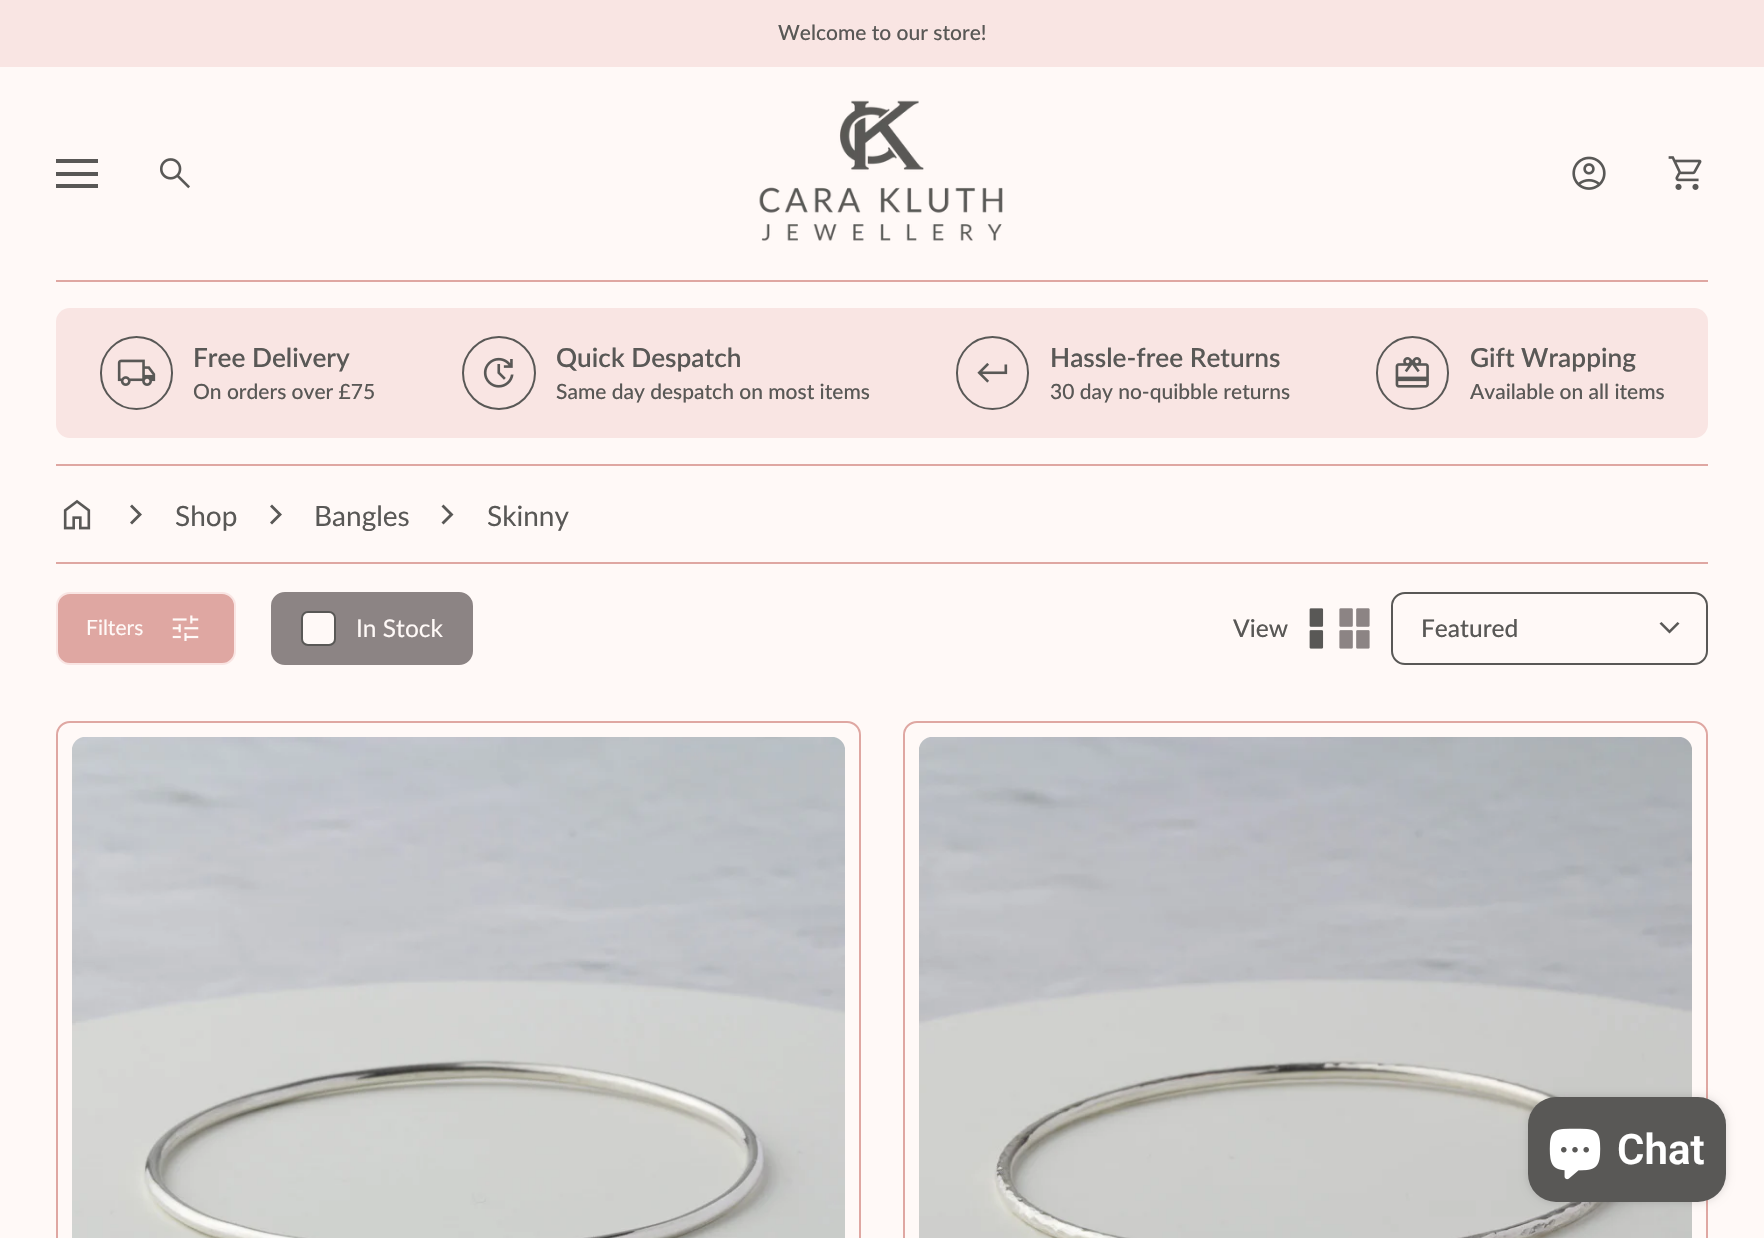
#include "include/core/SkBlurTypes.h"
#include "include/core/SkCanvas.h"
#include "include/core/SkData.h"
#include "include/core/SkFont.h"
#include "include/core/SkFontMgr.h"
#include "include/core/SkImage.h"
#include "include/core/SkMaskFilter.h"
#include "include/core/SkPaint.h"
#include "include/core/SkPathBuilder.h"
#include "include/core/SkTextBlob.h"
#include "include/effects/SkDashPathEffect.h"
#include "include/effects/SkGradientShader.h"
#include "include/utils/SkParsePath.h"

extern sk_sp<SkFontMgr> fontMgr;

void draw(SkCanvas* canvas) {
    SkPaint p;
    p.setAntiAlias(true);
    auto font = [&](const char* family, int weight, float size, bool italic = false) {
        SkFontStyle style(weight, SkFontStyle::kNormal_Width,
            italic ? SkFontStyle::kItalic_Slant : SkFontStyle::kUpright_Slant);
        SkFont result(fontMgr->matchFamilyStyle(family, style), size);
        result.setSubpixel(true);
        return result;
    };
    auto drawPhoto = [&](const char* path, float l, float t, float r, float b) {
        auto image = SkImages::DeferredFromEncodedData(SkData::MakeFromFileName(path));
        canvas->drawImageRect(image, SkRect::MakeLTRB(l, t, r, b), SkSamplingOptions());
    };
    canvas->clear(0xFFFFF9F7);
    p.setColor(0xFFF9E5E3);
    canvas->drawRect(SkRect::MakeLTRB(0, 0, 1764, 67), p);
    auto font1 = font("Lato", 500, 21);
    p.setColor(0xFF595856);
    canvas->drawString("Welcome to our store!", 778, 40, font1, p);
    {
        const struct { float l, t, r, b; SkColor color; } items[] = {
            {56, 159, 98, 163, 0xFF595856},
            {56, 172, 98, 176, 0xFF595856},
            {56, 184, 98, 188, 0xFF595856},
        };
        for (auto [l, t, r, b, color] : items) {
            p.setColor(color);
            canvas->drawRect(SkRect::MakeLTRB(l, t, r, b), p);
        }
    }
    drawPhoto("media/1.png", 160, 158, 190, 189);
    drawPhoto("media/2.png", 759, 100, 1003, 241);
    drawPhoto("media/3.png", 1572, 156, 1606, 190);
    drawPhoto("media/4.png", 1668, 156, 1702, 190);
    p.setColor(0xFFDFA7A2);
    canvas->drawRect(SkRect::MakeLTRB(56, 280, 1708, 282), p);
    p.setColor(0xFFF9E5E3);
    canvas->drawRoundRect(SkRect::MakeLTRB(56, 308, 1708, 438), 14, 14, p);
    p.setStyle(SkPaint::kStroke_Style);
    p.setStrokeWidth(2);
    p.setColor(0xFF595856);
    canvas->drawRoundRect(SkRect::MakeLTRB(101, 337, 172, 409), 35.5f, 35.5f, p);
    drawPhoto("media/5.png", 117, 359, 156, 386);
    auto font2 = font("Lato", 600, 26.25f);
    p.setStyle(SkPaint::kFill_Style);
    canvas->drawString("Free Delivery", 193, 367, font2, p);
    canvas->drawString("On orders over £75", 193, 399, font1, p);
    p.setStyle(SkPaint::kStroke_Style);
    canvas->drawCircle(499, 373, 36, p);
    drawPhoto("media/6.png", 483, 357, 514, 388);
    p.setStyle(SkPaint::kFill_Style);
    canvas->drawString("Quick Despatch", 556, 367, font2, p);
    canvas->drawString("Same day despatch on most items", 556, 399, font1, p);
    p.setStyle(SkPaint::kStroke_Style);
    canvas->drawRoundRect(SkRect::MakeLTRB(957, 337, 1028, 409), 35.5f, 35.5f, p);
    drawPhoto("media/7.png", 977, 363, 1008, 383);
    p.setStyle(SkPaint::kFill_Style);
    canvas->drawString("Hassle-free Returns", 1050, 367, font2, p);
    canvas->drawString("30 day no-quibble returns", 1050, 399, font1, p);
    p.setStyle(SkPaint::kStroke_Style);
    canvas->drawRoundRect(SkRect::MakeLTRB(1377, 337, 1448, 409), 35.5f, 35.5f, p);
    drawPhoto("media/8.png", 1395, 357, 1429, 388);
    p.setStyle(SkPaint::kFill_Style);
    canvas->drawString("Gift Wrapping", 1470, 367, font2, p);
    canvas->drawString("Available on all items", 1470, 399, font1, p);
    p.setColor(0xFFDFA7A2);
    canvas->drawRect(SkRect::MakeLTRB(56, 464, 1708, 466), p);
    drawPhoto("media/9.png", 63, 499, 91, 530);
    p.setColor(0xFF595856);
    canvas->drawPath(SkPathBuilder().moveTo(138, 514.5f).lineTo(130, 506.5f).lineTo(132, 504.5f).lineTo(142, 514.5f).lineTo(132, 524.5f).lineTo(130, 522.5f).close().detach(), p);
    auto font3 = font("Lato", 400, 28);
    canvas->drawString("Shop", 175, 526, font3, p);
    canvas->drawPath(SkPathBuilder().moveTo(278, 514.5f).lineTo(270, 506.5f).lineTo(272, 504.5f).lineTo(282, 514.5f).lineTo(272, 524.5f).lineTo(270, 522.5f).close().detach(), p);
    canvas->drawString("Bangles", 314, 526, font3, p);
    canvas->drawPath(SkPathBuilder().moveTo(449.5f, 514.5f).lineTo(441.5f, 506.5f).lineTo(443.5f, 504.5f).lineTo(453.5f, 514.5f).lineTo(443.5f, 524.5f).lineTo(441.5f, 522.5f).close().detach(), p);
    canvas->drawString("Skinny", 487, 526, font3, p);
    p.setColor(0xFFDFA7A2);
    canvas->drawRect(SkRect::MakeLTRB(56, 562, 1708, 564), p);
    canvas->drawRoundRect(SkRect::MakeLTRB(57, 593, 235, 664), 13, 13, p);
    p.setStyle(SkPaint::kStroke_Style);
    p.setColor(0xFFF9E5E3);
    canvas->drawRoundRect(SkRect::MakeLTRB(57, 593, 235, 664), 13, 13, p);
    auto font4 = font("Lato", 400, 21);
    p.setStyle(SkPaint::kFill_Style);
    p.setColor(0xFFFFF9F7);
    canvas->drawString("Filters", 86, 635, font4, p);
    drawPhoto("media/10.png", 172, 615, 199, 641);
    p.setColor(0xFF8C8484);
    canvas->drawRoundRect(SkRect::MakeLTRB(272, 593, 472, 664), 13, 13, p);
    p.setStyle(SkPaint::kStroke_Style);
    canvas->drawRoundRect(SkRect::MakeLTRB(272, 593, 472, 664), 13, 13, p);
    p.setStyle(SkPaint::kFill_Style);
    p.setColor(0xFFFFF9F7);
    canvas->drawRoundRect(SkRect::MakeLTRB(302, 612, 335, 645), 6, 6, p);
    p.setStyle(SkPaint::kStroke_Style);
    p.setColor(0xFF595856);
    canvas->drawRoundRect(SkRect::MakeLTRB(302, 612, 335, 645), 6, 6, p);
    auto font5 = font("Lato", 400, 24.5f);
    p.setStyle(SkPaint::kFill_Style);
    p.setColor(0xFFFFF9F7);
    canvas->drawString("In Stock", 356, 637, font5, p);
    auto font6 = font("Lato", 500, 24.5f);
    p.setColor(0xFF595856);
    canvas->drawString("View", 1233, 637, font6, p);
    drawPhoto("media/11.png", 1309, 608, 1324, 649);
    drawPhoto("media/12.png", 1339, 608, 1370, 649);
    p.setStyle(SkPaint::kStroke_Style);
    canvas->drawRoundRect(SkRect::MakeLTRB(1392, 593, 1707, 664), 13, 13, p);
    p.setStyle(SkPaint::kFill_Style);
    canvas->drawString("Featured", 1421, 637, font6, p);
    canvas->drawPath(SkPathBuilder().moveTo(1669.5f, 633.5f).lineTo(1659.5f, 623.5f).lineTo(1661.5f, 622).lineTo(1669.5f, 630).lineTo(1677.5f, 622).lineTo(1679.5f, 623.5f).close().detach(), p);
    p.setStyle(SkPaint::kStroke_Style);
    p.setColor(0xFFDFA7A2);
    canvas->drawRoundRect(SkRect::MakeLTRB(57, 722, 860, 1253), 13, 13, p);
    drawPhoto("media/13.png", 72, 737, 845, 1238);
    canvas->drawRoundRect(SkRect::MakeLTRB(904, 722, 1707, 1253), 13, 13, p);
    drawPhoto("media/14.png", 919, 737, 1692, 1238);
    p.setStyle(SkPaint::kFill_Style);
    p.setColor(0x26000000);
    p.setMaskFilter(SkMaskFilter::MakeBlur(kNormal_SkBlurStyle, 4.5f));
    canvas->drawRoundRect(SkRect::MakeLTRB(1528, 1097, 1726, 1202), 28, 28, p);
    p.setMaskFilter(nullptr);
    p.setColor(0xFF595856);
    canvas->drawRoundRect(SkRect::MakeLTRB(1528, 1097, 1726, 1202), 28, 28, p);
    drawPhoto("media/15.png", 1549, 1128, 1601, 1180);
    auto font7 = font("Roboto", 600, 42);
    p.setColor(0xFFFFFFFF);
    canvas->drawString("Chat", 1617, 1164, font7, p);
}
